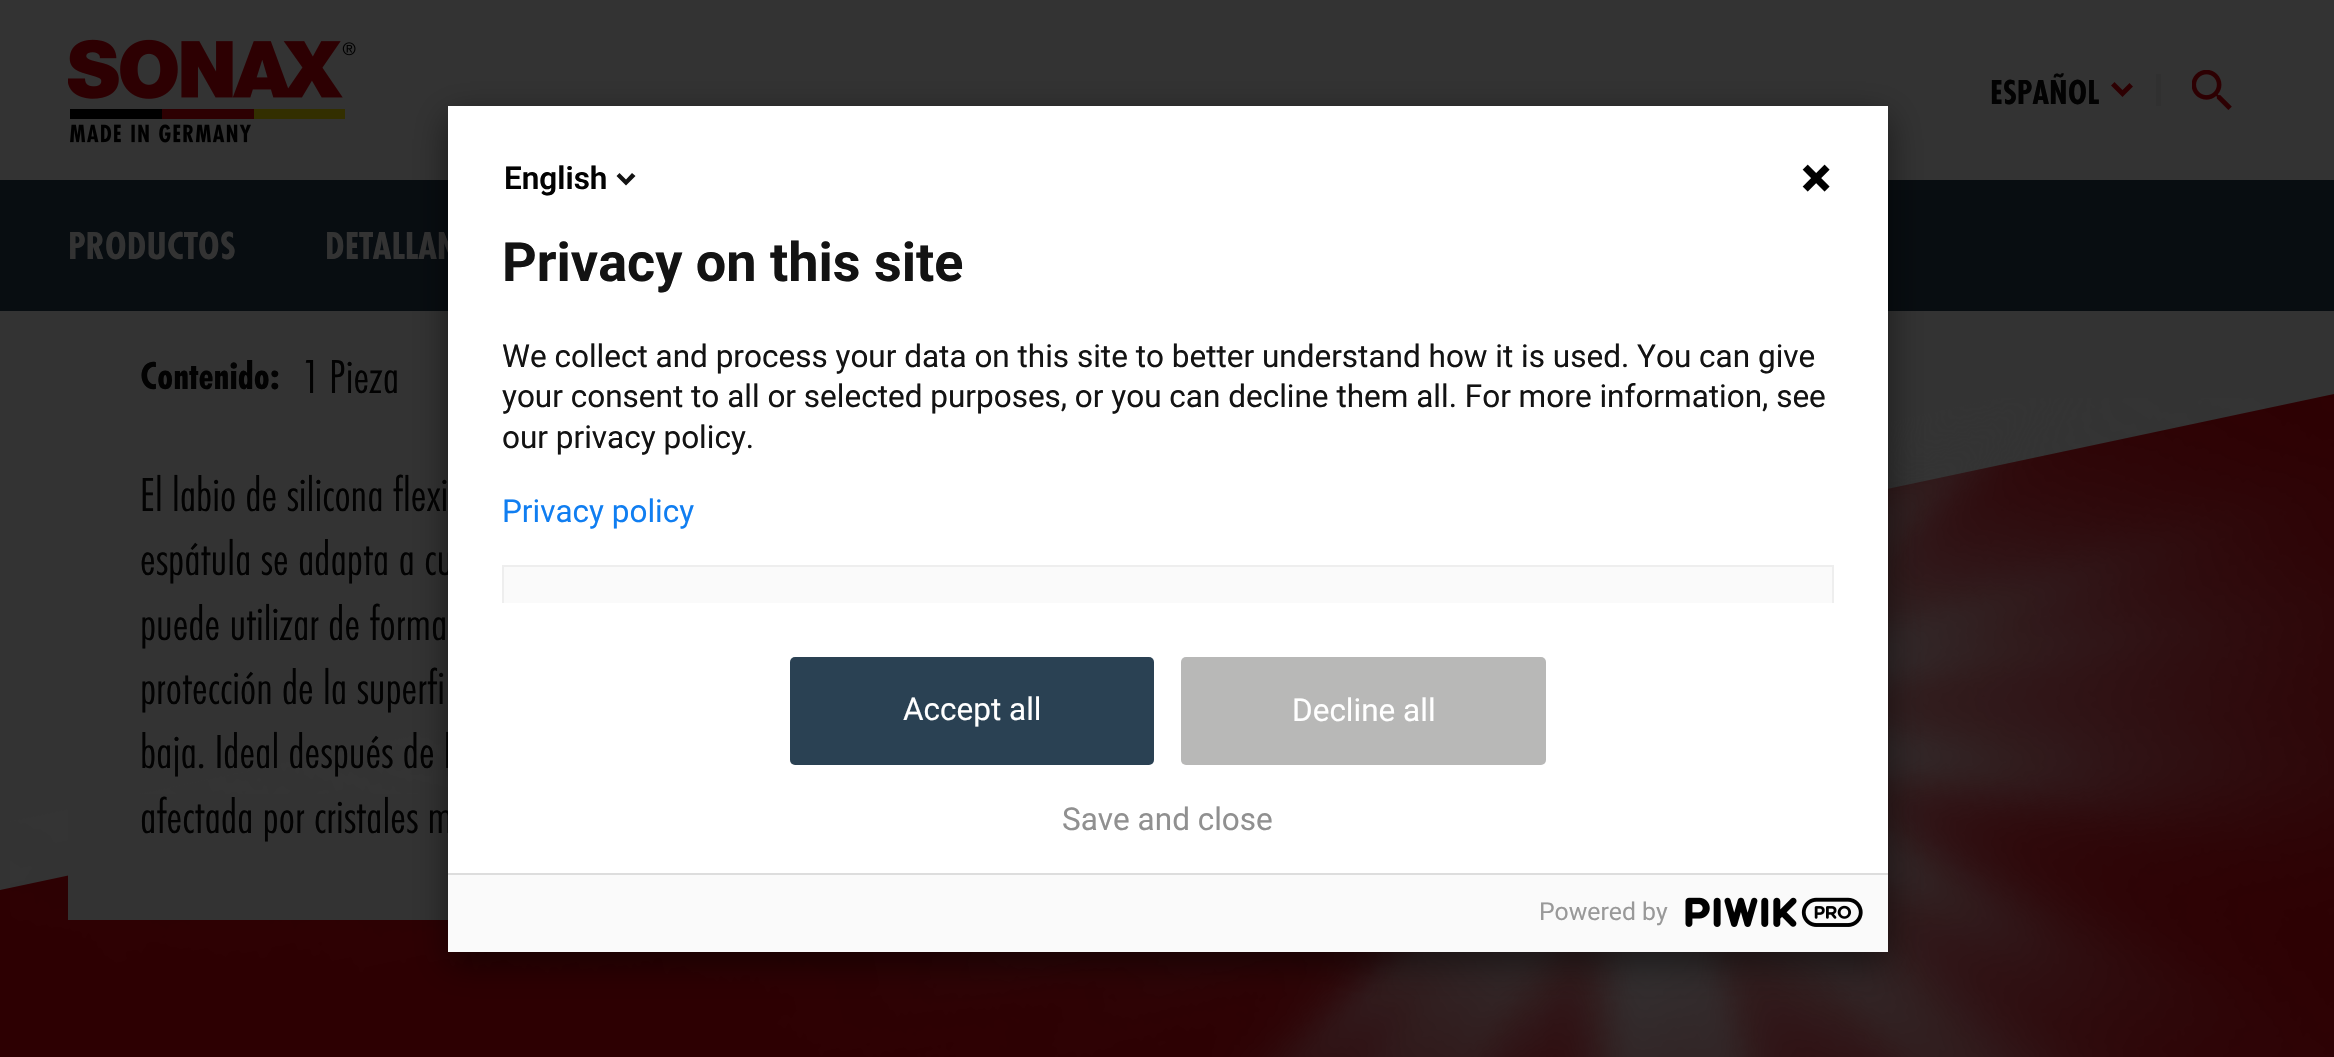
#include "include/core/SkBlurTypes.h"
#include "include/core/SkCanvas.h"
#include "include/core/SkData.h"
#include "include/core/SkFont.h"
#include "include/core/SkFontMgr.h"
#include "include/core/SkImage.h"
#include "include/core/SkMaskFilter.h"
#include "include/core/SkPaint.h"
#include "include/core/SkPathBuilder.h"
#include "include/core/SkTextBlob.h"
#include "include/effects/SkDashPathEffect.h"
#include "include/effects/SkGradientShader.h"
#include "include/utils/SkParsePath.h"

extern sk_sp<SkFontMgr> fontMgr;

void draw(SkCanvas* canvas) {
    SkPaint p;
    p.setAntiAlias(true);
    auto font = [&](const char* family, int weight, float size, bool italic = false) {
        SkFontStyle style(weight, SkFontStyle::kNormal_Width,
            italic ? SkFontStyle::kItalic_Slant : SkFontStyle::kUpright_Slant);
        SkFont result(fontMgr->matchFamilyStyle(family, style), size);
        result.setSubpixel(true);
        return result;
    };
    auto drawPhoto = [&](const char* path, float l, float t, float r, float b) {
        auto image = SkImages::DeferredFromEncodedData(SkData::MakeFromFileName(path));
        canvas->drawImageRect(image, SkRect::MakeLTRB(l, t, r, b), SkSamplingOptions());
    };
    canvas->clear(0xFF333333);
    drawPhoto("media/1.png", 68, 39, 356, 143);
    auto font1 = font("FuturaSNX", 700, 36);
    p.setColor(0xFF020202);
    canvas->drawString("ESPAÑOL", 1990, 104, font1, p);
    p.setColor(0xFF2D0002);
    canvas->drawPath(SkPathBuilder().moveTo(2126, 93.5f).lineTo(2122.5f, 97).lineTo(2111, 85.5f).lineTo(2114.5f, 82).lineTo(2122.5f, 90).lineTo(2129.5f, 83).lineTo(2133, 86.5f).close().detach(), p);
    p.setColor(0xFF303030);
    canvas->drawRect(SkRect::MakeLTRB(2156, 74, 2161, 106), p);
    drawPhoto("media/2.png", 2192, 70, 2232, 110);
    p.setColor(0xFF080D11);
    canvas->drawRect(SkRect::MakeLTRB(0, 180, 2334, 311), p);
    auto font2 = font("FuturaSNX", 700, 40.5f);
    p.setColor(0xFF333333);
    canvas->drawString("PRODUCTOS", 68, 259, font2, p);
    canvas->drawString("DETALLAN", 325, 259, font2, p);
    p.setColor(0xFF2D0002);
    canvas->drawPath(SkPathBuilder().moveTo(-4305, 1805).lineTo(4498, -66).lineTo(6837, 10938).lineTo(-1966, 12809).close().detach(), p);
    drawPhoto("media/3.png", 10, 398, 2334, 1057);
    p.setColor(0xFF333333);
    canvas->drawRect(SkRect::MakeLTRB(68, 794, 448, 920), p);
    p.setColor(0xFF020202);
    canvas->drawString("Contenido:", 140, 389, font2, p);
    auto font3 = font("FuturaSNX", 300, 49.5f);
    {
        const struct { const char* s; float x, y; } items[] = {
            {"1 Pieza", 302, 393},
            {"El labio de silicona flexi", 140, 511},
            {"espátula se adapta a cu", 140, 575},
            {"puede utilizar de forma", 140, 640},
            {"protección de la superfi", 140, 704},
            {"baja. Ideal después de l", 140, 768},
            {"afectada por cristales m", 140, 833},
        };
        for (auto [s, x, y] : items) {
            canvas->drawString(s, x, y, font3, p);
        }
    }
    p.setColor(0x80000000);
    p.setMaskFilter(SkMaskFilter::MakeBlur(kNormal_SkBlurStyle, 17));
    canvas->drawRect(SkRect::MakeLTRB(448, 117, 1888, 963), p);
    p.setMaskFilter(nullptr);
    p.setColor(0xFFFFFFFF);
    canvas->drawRect(SkRect::MakeLTRB(448, 106, 1888, 873), p);
    auto font4 = font("Roboto", 600, 31.5f);
    p.setColor(0xFF020202);
    canvas->drawString("English", 504, 189, font4, p);
    p.setColor(0xFF131313);
    canvas->drawPath(SkPathBuilder().moveTo(626, 179.5f).lineTo(632, 173).lineTo(635.5f, 176).lineTo(626, 185.5f).lineTo(616.5f, 176).lineTo(619.5f, 173).close().detach(), p);
    drawPhoto("media/4.png", 1802, 164, 1830, 192);
    auto font5 = font("Roboto", 700, 54);
    canvas->drawString("Privacy on this site", 502, 281, font5, p);
    auto font6 = font("Roboto", 400, 31.5f);
    {
        const struct { const char* s; float x, y; } items[] = {
            {"We collect and process your data on this site to better understand how it is used. You can give", 502, 367},
            {"your consent to all or selected purposes, or you can decline them all. For more information, see", 502, 407},
            {"our privacy policy.", 502, 448},
        };
        for (auto [s, x, y] : items) {
            canvas->drawString(s, x, y, font6, p);
        }
    }
    p.setColor(0xFF107EF1);
    canvas->drawString("Privacy policy", 502, 522, font6, p);
    p.setColor(0xFFFAFAFA);
    canvas->drawRect(SkRect::MakeLTRB(504, 567, 1832, 603), p);
    p.setColor(0xFF2A4153);
    canvas->drawRoundRect(SkRect::MakeLTRB(790, 657, 1154, 765), 5, 5, p);
    p.setColor(0xFFB8B8B7);
    canvas->drawRoundRect(SkRect::MakeLTRB(1181, 657, 1546, 765), 5, 5, p);
    canvas->save();
    canvas->clipRect(SkRect::MakeLTRB(502, 565, 1834, 603));
    p.setStyle(SkPaint::kStroke_Style);
    p.setStrokeWidth(2);
    p.setColor(0xFFEEEEEE);
    canvas->drawRect(SkRect::MakeLTRB(503, 566, 1833, 748), p);
    canvas->restore();
    p.setStyle(SkPaint::kFill_Style);
    p.setColor(0xFFFFFFFF);
    canvas->drawString("Accept all", 903, 720, font6, p);
    canvas->drawString("Decline all", 1292, 721, font6, p);
    p.setColor(0xFF909090);
    canvas->drawString("Save and close", 1062, 830, font6, p);
    p.setColor(0xFFFAFAFA);
    canvas->drawRect(SkRect::MakeLTRB(448, 875, 1888, 952), p);
    p.setColor(0xFFDDDDDD);
    canvas->drawRect(SkRect::MakeLTRB(448, 873, 1888, 875), p);
    auto font7 = font("Roboto", 400, 24.75f);
    p.setColor(0xFF999999);
    canvas->drawString("Powered by", 1539, 920, font7, p);
    drawPhoto("media/5.png", 1685, 897, 1863, 927);
}
